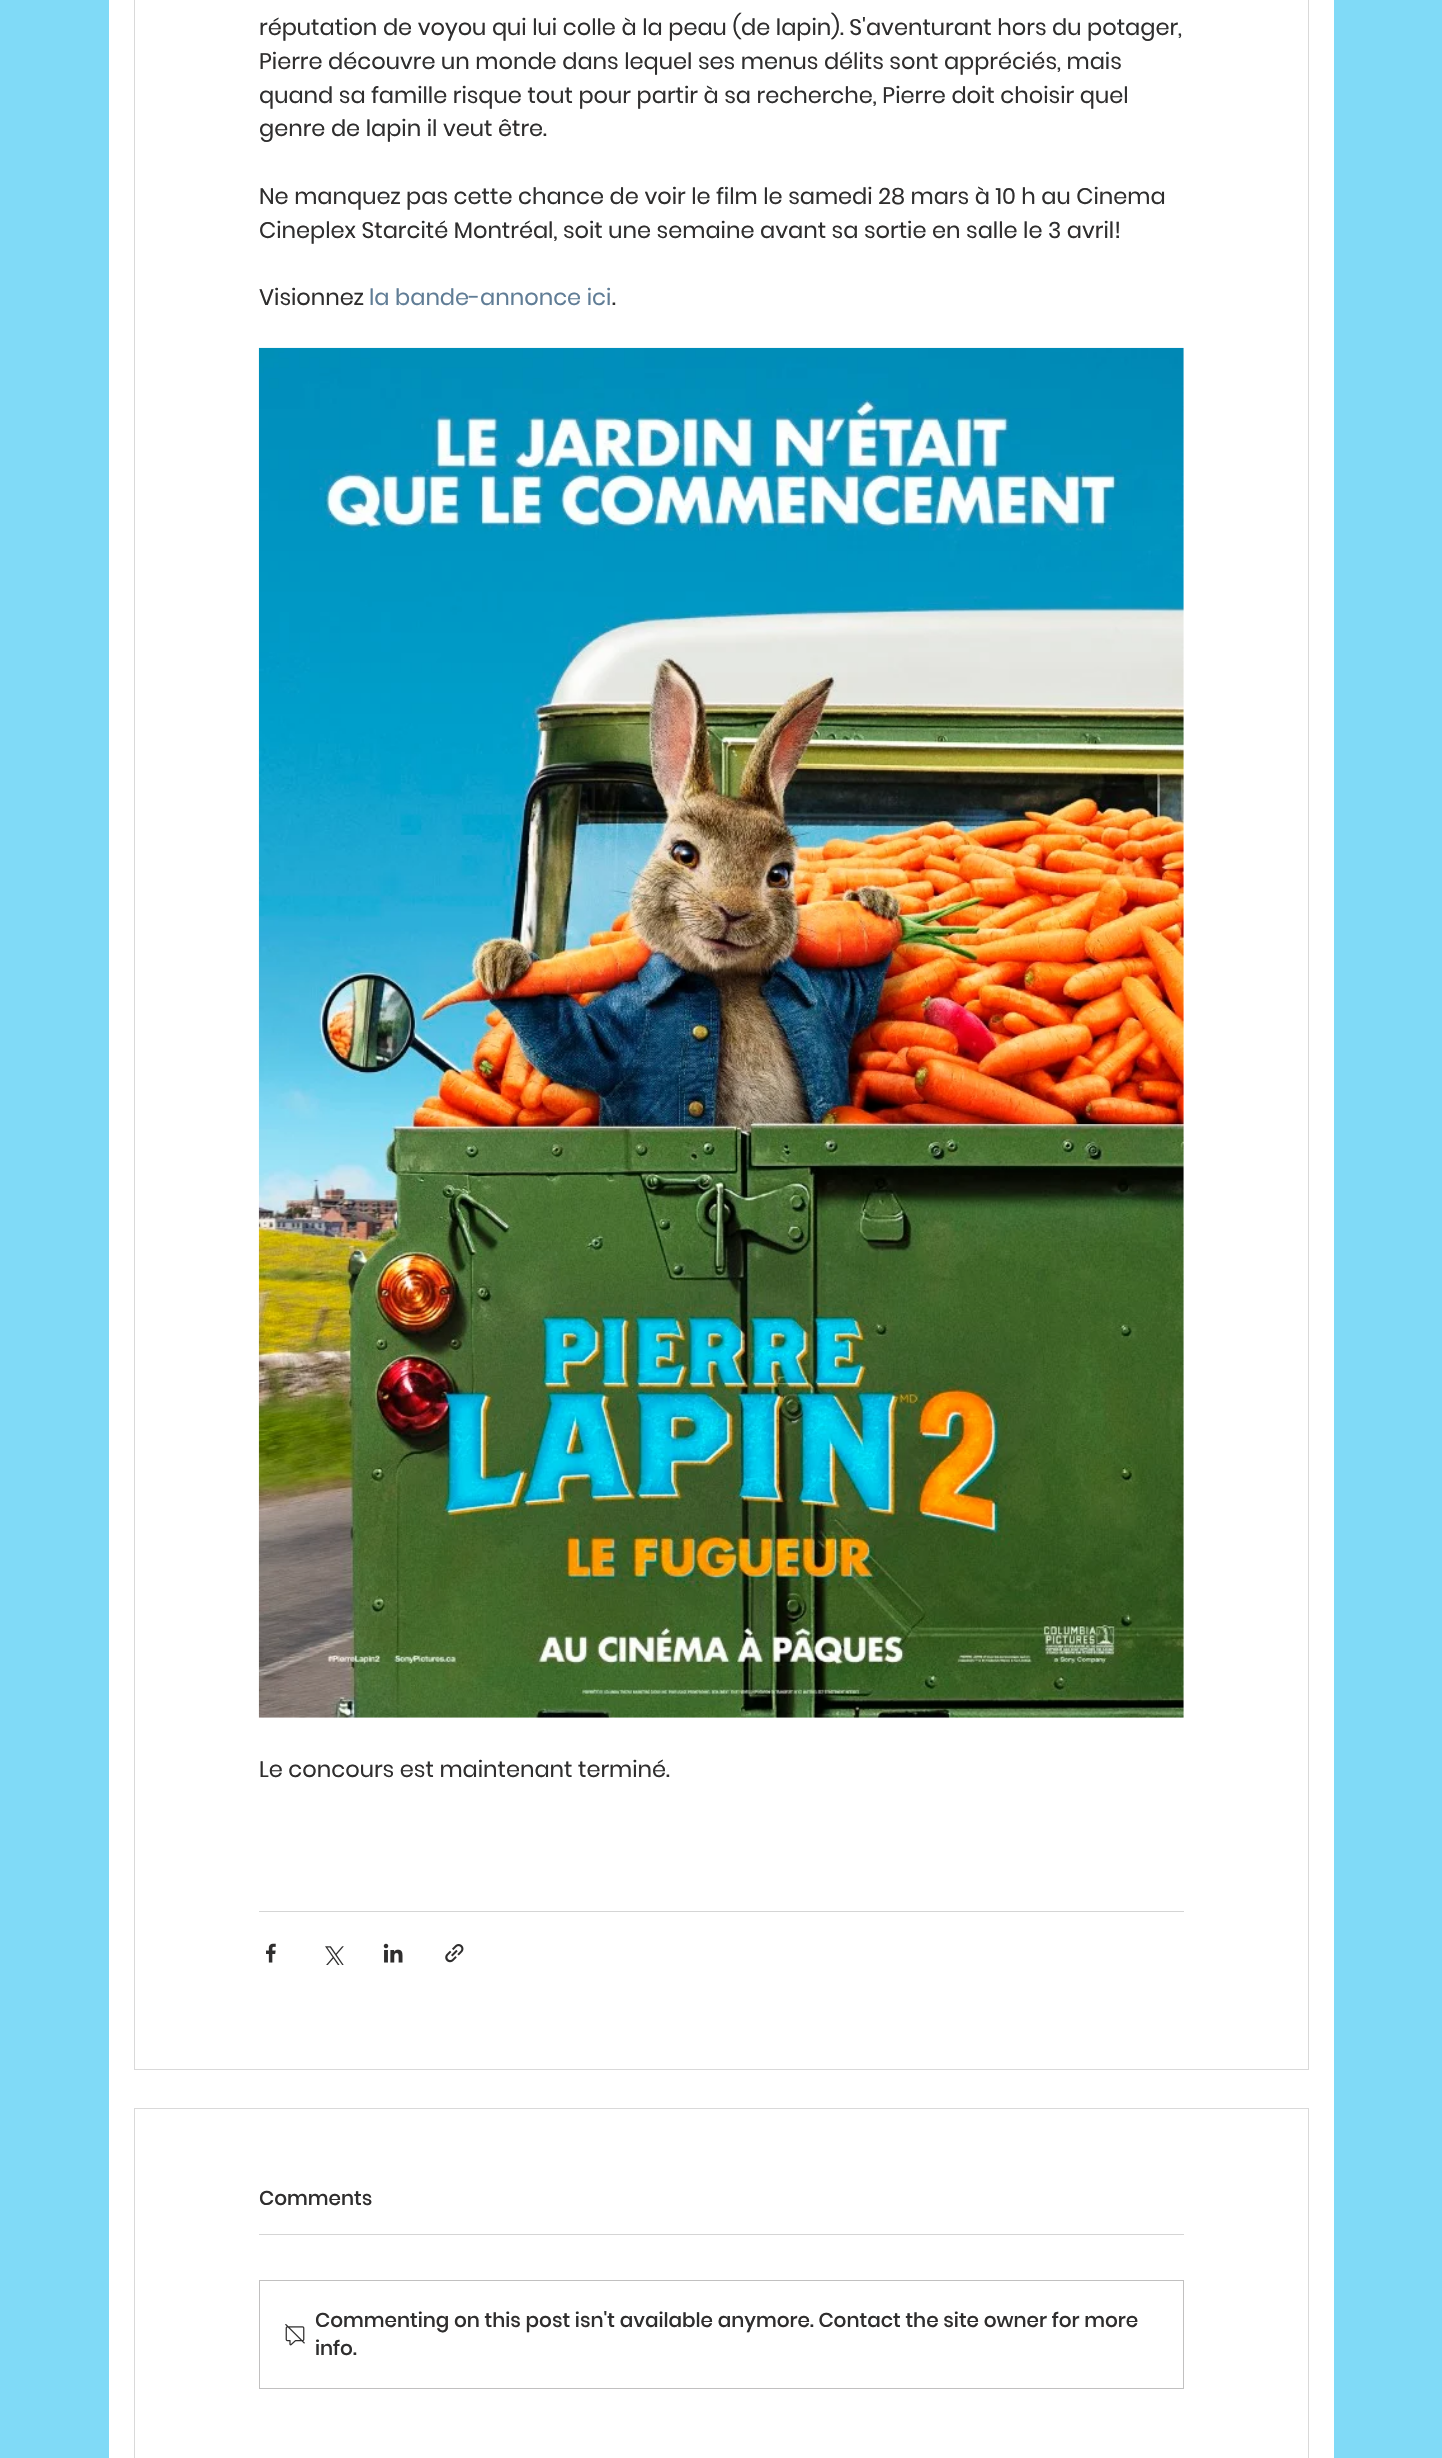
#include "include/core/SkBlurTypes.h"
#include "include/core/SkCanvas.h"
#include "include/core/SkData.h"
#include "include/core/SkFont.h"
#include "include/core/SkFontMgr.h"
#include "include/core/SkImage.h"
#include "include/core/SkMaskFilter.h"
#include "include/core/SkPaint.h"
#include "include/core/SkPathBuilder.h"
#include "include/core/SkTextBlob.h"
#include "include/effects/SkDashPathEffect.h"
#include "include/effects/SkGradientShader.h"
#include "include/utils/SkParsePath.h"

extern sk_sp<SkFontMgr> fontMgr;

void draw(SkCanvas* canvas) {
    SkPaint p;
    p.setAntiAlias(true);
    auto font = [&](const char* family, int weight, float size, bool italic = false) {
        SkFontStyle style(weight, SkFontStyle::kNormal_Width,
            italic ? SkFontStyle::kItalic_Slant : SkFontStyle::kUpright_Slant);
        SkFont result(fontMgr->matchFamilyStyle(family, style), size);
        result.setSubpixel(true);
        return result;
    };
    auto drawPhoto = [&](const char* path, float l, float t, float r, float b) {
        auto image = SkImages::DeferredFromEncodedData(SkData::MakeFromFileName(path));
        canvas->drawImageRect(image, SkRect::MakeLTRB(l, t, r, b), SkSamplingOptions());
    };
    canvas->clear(0xFF80DAF7);
    p.setColor(0xFFFFFFFF);
    canvas->drawRect(SkRect::MakeLTRB(109, 0, 1334, 2458), p);
    p.setStyle(SkPaint::kStroke_Style);
    p.setStrokeWidth(1);
    p.setColor(0xFFD9D9D9);
    canvas->drawRect(SkRect::MakeLTRB(134.5f, -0.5f, 1308.5f, 2069.5f), p);
    auto font1 = font("Poppins", 400, 22.5f);
    p.setStyle(SkPaint::kFill_Style);
    p.setColor(0xFF2F2E2E);
    {
        const struct { const char* s; float x, y; } items[] = {
            {"réputation de voyou qui lui colle à la peau (de lapin). S'aventurant hors du potager,", 259, 35},
            {"Pierre découvre un monde dans lequel ses menus délits sont appréciés, mais", 259, 69},
            {"quand sa famille risque tout pour partir à sa recherche, Pierre doit choisir quel", 259, 103},
            {"genre de lapin il veut être.", 259, 136},
            {"Ne manquez pas cette chance de voir le film le samedi 28 mars à 10 h au Cinema", 259, 204},
            {"Cineplex Starcité Montréal, soit une semaine avant sa sortie en salle le 3 avril!", 259, 238},
            {"Visionnez", 259, 305},
        };
        for (auto [s, x, y] : items) {
            canvas->drawString(s, x, y, font1, p);
        }
    }
    p.setColor(0xFF607D96);
    canvas->drawString("la bande-annonce ici", 369, 305, font1, p);
    p.setColor(0xFF2F2E2E);
    canvas->drawString(".", 612, 305, font1, p);
    drawPhoto("media/1.png", 258, 347, 1184, 1718);
    canvas->drawString("Le concours est maintenant terminé.", 259, 1777, font1, p);
    p.setColor(0xFFD5D5D5);
    canvas->drawRect(SkRect::MakeLTRB(259, 1911, 1184, 1912), p);
    drawPhoto("media/2.png", 266, 1943, 276, 1963);
    drawPhoto("media/3.png", 325, 1946, 344, 1965);
    drawPhoto("media/4.png", 383, 1943, 403, 1963);
    drawPhoto("media/5.png", 445, 1944, 464, 1963);
    p.setStyle(SkPaint::kStroke_Style);
    p.setColor(0xFFD9D9D9);
    canvas->drawRect(SkRect::MakeLTRB(134.5f, 2108.5f, 1308.5f, 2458.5f), p);
    auto font2 = font("Poppins", 500, 20);
    p.setStyle(SkPaint::kFill_Style);
    p.setColor(0xFF2F2E2E);
    canvas->drawString("Comments", 259, 2205, font2, p);
    p.setColor(0xFFD5D5D5);
    canvas->drawRect(SkRect::MakeLTRB(259, 2234, 1184, 2235), p);
    p.setStyle(SkPaint::kStroke_Style);
    p.setColor(0xFFC1C0C0);
    canvas->drawRect(SkRect::MakeLTRB(259.5f, 2280.5f, 1183.5f, 2388.5f), p);
    drawPhoto("media/6.png", 285, 2324, 305, 2346);
    p.setStyle(SkPaint::kFill_Style);
    p.setColor(0xFF2F2E2E);
    canvas->drawString("Commenting on this post isn't available anymore. Contact the site owner for more", 315, 2327, font2, p);
    canvas->drawString("info.", 315, 2355, font2, p);
}
